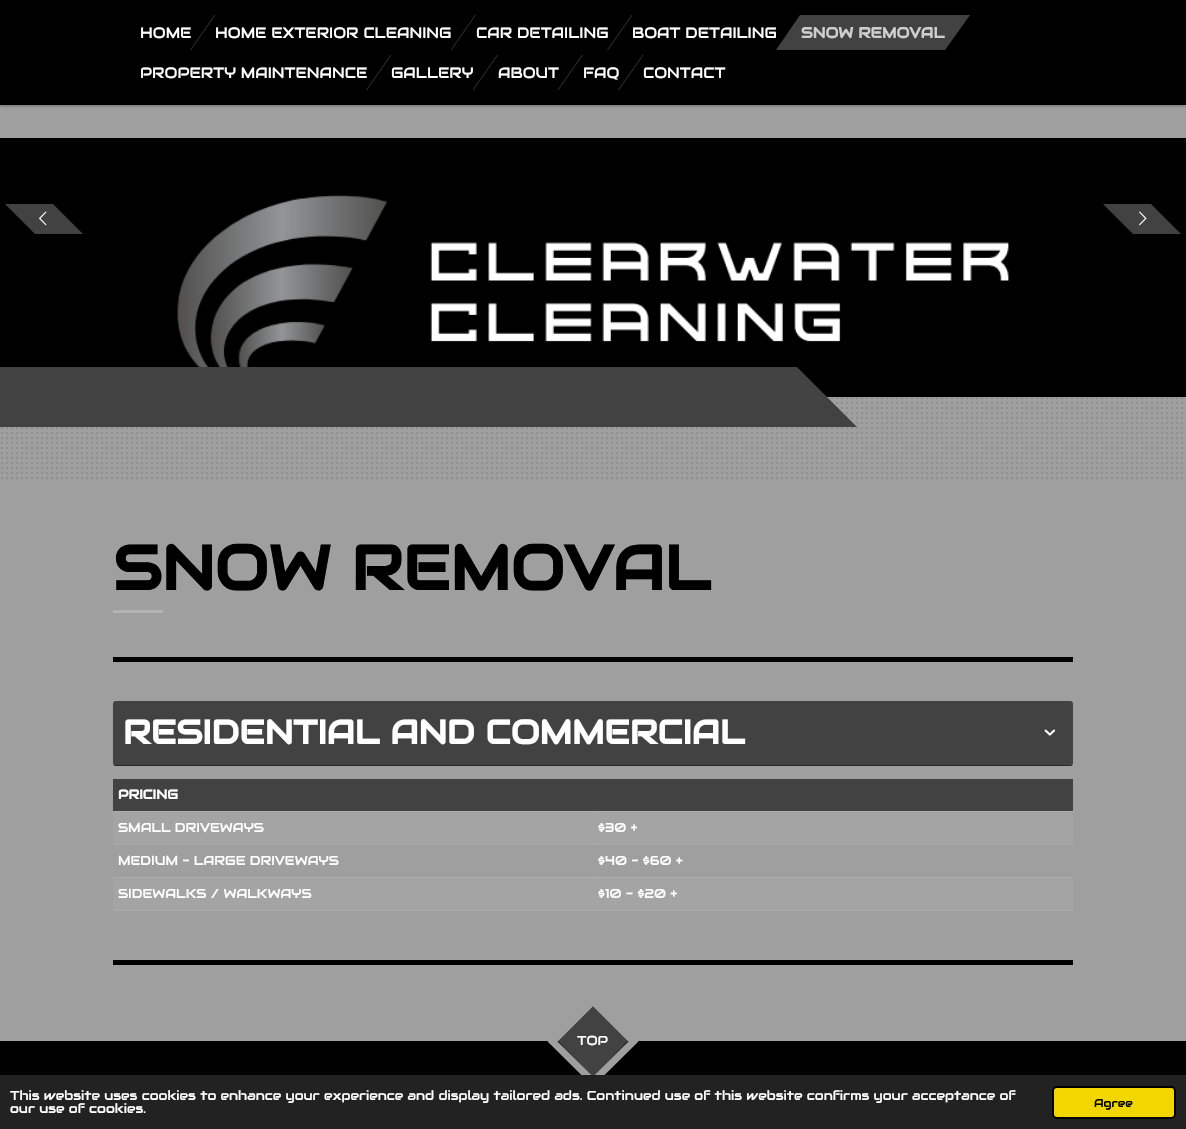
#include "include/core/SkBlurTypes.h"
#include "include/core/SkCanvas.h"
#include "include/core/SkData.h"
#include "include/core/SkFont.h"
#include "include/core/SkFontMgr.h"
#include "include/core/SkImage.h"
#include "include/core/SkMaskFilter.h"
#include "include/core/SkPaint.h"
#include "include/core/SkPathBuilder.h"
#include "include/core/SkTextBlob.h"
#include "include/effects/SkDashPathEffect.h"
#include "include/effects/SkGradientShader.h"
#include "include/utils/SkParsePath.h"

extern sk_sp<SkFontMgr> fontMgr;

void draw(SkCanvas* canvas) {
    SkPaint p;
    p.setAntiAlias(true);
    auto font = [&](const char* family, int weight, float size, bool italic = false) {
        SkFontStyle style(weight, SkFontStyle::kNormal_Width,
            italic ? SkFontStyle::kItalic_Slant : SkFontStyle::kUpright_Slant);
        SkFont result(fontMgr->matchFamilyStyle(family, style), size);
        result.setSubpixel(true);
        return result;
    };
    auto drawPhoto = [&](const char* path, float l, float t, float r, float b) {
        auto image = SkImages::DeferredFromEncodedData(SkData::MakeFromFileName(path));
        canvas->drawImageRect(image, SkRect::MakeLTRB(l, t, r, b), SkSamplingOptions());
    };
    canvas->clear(0xFF9F9F9F);
    p.setColor(0xFFA9A9A9);
    canvas->drawRect(SkRect::MakeLTRB(113, 844, 1073, 845), p);
    canvas->drawRect(SkRect::MakeLTRB(113, 910, 1073, 911), p);
    p.setColor(0x4D000000);
    p.setMaskFilter(SkMaskFilter::MakeBlur(kNormal_SkBlurStyle, 1.5f));
    canvas->drawRect(SkRect::MakeLTRB(0, -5, 1186, 106), p);
    p.setMaskFilter(nullptr);
    p.setColor(0xFF000000);
    canvas->drawRect(SkRect::MakeLTRB(0, 0, 1186, 105), p);
    p.setColor(0xFF333333);
    canvas->drawPath(SkPathBuilder().moveTo(214.5f, 15).lineTo(215.5f, 15).lineTo(191, 50).lineTo(190, 50).close().detach(), p);
    auto font1 = font("Audiowide", 400, 15);
    p.setColor(0xFFFFFFFF);
    canvas->drawString("HOME", 140, 38, font1, p);
    p.setColor(0xFF333333);
    canvas->drawPath(SkPathBuilder().moveTo(475, 15).lineTo(476, 15).lineTo(451.5f, 50).lineTo(450.5f, 50).close().detach(), p);
    p.setColor(0xFFFFFFFF);
    canvas->drawString("HOME EXTERIOR CLEANING", 215, 38, font1, p);
    p.setColor(0xFF333333);
    canvas->drawPath(SkPathBuilder().moveTo(631.5f, 15).lineTo(632.5f, 15).lineTo(608, 50).lineTo(607, 50).close().detach(), p);
    p.setColor(0xFFFFFFFF);
    canvas->drawString("CAR DETAILING", 476, 38, font1, p);
    canvas->drawString("BOAT DETAILING", 632, 38, font1, p);
    p.setColor(0xFF424242);
    canvas->drawPath(SkPathBuilder().moveTo(800, 15).lineTo(970, 15).lineTo(945, 50).lineTo(776, 50).close().detach(), p);
    auto font2 = font("Audiowide", 700, 15);
    p.setColor(0xFFCECECE);
    canvas->drawString("SNOW REMOVAL", 801, 38, font2, p);
    p.setColor(0xFF333333);
    canvas->drawPath(SkPathBuilder().moveTo(390.5f, 55).lineTo(391.5f, 55).lineTo(367, 90).lineTo(366, 90).close().detach(), p);
    p.setColor(0xFFFFFFFF);
    canvas->drawString("PROPERTY MAINTENANCE", 140, 78, font1, p);
    p.setColor(0xFF333333);
    canvas->drawPath(SkPathBuilder().moveTo(497, 55).lineTo(498, 55).lineTo(473.5f, 90).lineTo(472.5f, 90).close().detach(), p);
    p.setColor(0xFFFFFFFF);
    canvas->drawString("GALLERY", 391, 78, font1, p);
    p.setColor(0xFF333333);
    canvas->drawPath(SkPathBuilder().moveTo(582, 55).lineTo(583, 55).lineTo(558.5f, 90).lineTo(557.5f, 90).close().detach(), p);
    p.setColor(0xFFFFFFFF);
    canvas->drawString("ABOUT", 498, 78, font1, p);
    p.setColor(0xFF333333);
    canvas->drawPath(SkPathBuilder().moveTo(642.5f, 55).lineTo(643.5f, 55).lineTo(619, 90).lineTo(618, 90).close().detach(), p);
    p.setColor(0xFFFFFFFF);
    canvas->drawString("FAQ", 583, 78, font1, p);
    canvas->drawString("CONTACT", 643, 78, font1, p);
    drawPhoto("media/1.png", 0, 138, 1186, 397);
    p.setColor(0xFF424242);
    canvas->drawRect(SkRect::MakeLTRB(35, 204, 53, 234), p);
    canvas->drawPath(SkPathBuilder().moveTo(35, 204).lineTo(35, 234).lineTo(5, 204).close().detach(), p);
    drawPhoto("media/2.png", 39, 211, 47, 226);
    canvas->drawPath(SkPathBuilder().moveTo(53, 234).lineTo(53, 204).lineTo(83, 234).close().detach(), p);
    canvas->drawRect(SkRect::MakeLTRB(1133, 204, 1151, 234), p);
    canvas->drawPath(SkPathBuilder().moveTo(1133, 204).lineTo(1133, 234).lineTo(1103, 204).close().detach(), p);
    drawPhoto("media/3.png", 1139, 211, 1147, 226);
    canvas->drawPath(SkPathBuilder().moveTo(1151, 234).lineTo(1151, 204).lineTo(1181, 234).close().detach(), p);
    drawPhoto("media/4.png", 1, 367, 1183, 479);
    canvas->drawRect(SkRect::MakeLTRB(0, 367, 797, 427), p);
    canvas->drawPath(SkPathBuilder().moveTo(797, 427).lineTo(797, 367).lineTo(857, 427).close().detach(), p);
    auto font3 = font("Audiowide", 700, 62.5f);
    p.setColor(0xFF000000);
    canvas->drawString("SNOW REMOVAL", 113, 590, font3, p);
    p.setColor(0xFFB3B3B3);
    canvas->drawRect(SkRect::MakeLTRB(113, 610, 163, 613), p);
    p.setColor(0xFF000000);
    canvas->drawRect(SkRect::MakeLTRB(113, 657, 1073, 662), p);
    p.setColor(0xFF424242);
    canvas->drawRoundRect(SkRect::MakeLTRB(113, 701, 1073, 766), 3, 3, p);
    canvas->save();
    canvas->clipPath(SkPathBuilder().moveTo(116, 701).lineTo(1070, 701).cubicTo(1071.5f, 701, 1073, 702.5f, 1073, 704).lineTo(1073, 763).cubicTo(1073, 764.5f, 1071.5f, 766, 1070, 766).lineTo(116, 766).cubicTo(114.5f, 766, 113, 764.5f, 113, 763).lineTo(113, 704).cubicTo(113, 702.5f, 114.5f, 701, 116, 701).close().detach(), true);
    p.setColor(0xFF292929);
    canvas->drawRect(SkRect::MakeLTRB(113, 765, 1073, 766), p);
    canvas->restore();
    auto font4 = font("Audiowide", 700, 33.6f);
    p.setColor(0xFFFFFFFF);
    canvas->drawString("RESIDENTIAL AND COMMERCIAL", 123, 744, font4, p);
    drawPhoto("media/5.png", 1044, 729, 1056, 736);
    p.setColor(0xFF424242);
    canvas->drawRect(SkRect::MakeLTRB(113, 779, 1073, 811), p);
    auto font5 = font("Audiowide", 700, 13);
    p.setColor(0xFFFFFFFF);
    canvas->drawString("PRICING", 118, 799, font5, p);
    p.setColor(0xFFA4A4A4);
    canvas->drawRect(SkRect::MakeLTRB(113, 812, 1073, 844), p);
    p.setColor(0xFFADADAD);
    canvas->drawRect(SkRect::MakeLTRB(113, 811, 1073, 812), p);
    auto font6 = font("Audiowide", 400, 13);
    p.setColor(0xFFFFFFFF);
    canvas->drawString("SMALL DRIVEWAYS", 118, 832, font6, p);
    p.setColor(0xFFB5B5B5);
    canvas->drawRect(SkRect::MakeLTRB(593, 811, 594, 812), p);
    p.setColor(0xFFFFFFFF);
    canvas->drawString("$30 +", 598, 832, font6, p);
    canvas->drawString("MEDIUM - LARGE DRIVEWAYS", 118, 865, font6, p);
    p.setColor(0xFFB2B2B2);
    canvas->drawRect(SkRect::MakeLTRB(593, 844, 594, 845), p);
    p.setColor(0xFFFFFFFF);
    canvas->drawString("$40 - $60 +", 598, 865, font6, p);
    p.setColor(0xFFA4A4A4);
    canvas->drawRect(SkRect::MakeLTRB(113, 878, 1073, 910), p);
    p.setColor(0xFFADADAD);
    canvas->drawRect(SkRect::MakeLTRB(113, 877, 1073, 878), p);
    p.setColor(0xFFFFFFFF);
    canvas->drawString("SIDEWALKS / WALKWAYS", 118, 898, font6, p);
    p.setColor(0xFFB5B5B5);
    canvas->drawRect(SkRect::MakeLTRB(593, 877, 594, 878), p);
    p.setColor(0xFFFFFFFF);
    canvas->drawString("$10 - $20 +", 598, 898, font6, p);
    {
        const struct { float l, t, r, b; SkColor color; } items[] = {
            {593, 910, 594, 911, 0xFFB2B2B2},
            {113, 960, 1073, 965, 0xFF000000},
            {0, 1041, 1186, 1075, 0xFF000000},
        };
        for (auto [l, t, r, b, color] : items) {
            p.setColor(color);
            canvas->drawRect(SkRect::MakeLTRB(l, t, r, b), p);
        }
    }
    p.setColor(0xFF424242);
    canvas->drawPath(SkPathBuilder().moveTo(593, 1006).lineTo(628, 1041).lineTo(593, 1077).lineTo(558, 1041).close().detach(), p);
    p.setStyle(SkPaint::kStroke_Style);
    p.setStrokeWidth(7);
    p.setColor(0xFF9F9F9F);
    canvas->drawPath(SkPathBuilder().moveTo(593, 1001).lineTo(633.5f, 1041.5f).lineTo(593, 1081.5f).lineTo(552.5f, 1041.5f).close().detach(), p);
    p.setStyle(SkPaint::kFill_Style);
    p.setColor(0xFFFFFFFF);
    canvas->drawString("TOP", 577, 1045, font6, p);
    p.setColor(0xFF222222);
    canvas->drawRect(SkRect::MakeLTRB(0, 1075, 1186, 1129), p);
    p.setColor(0xFFFFFFFF);
    canvas->drawString("This website uses cookies to enhance your experience and display tailored ads. Continued use of this website confirms your acceptance of", 10, 1100, font6, p);
    canvas->drawString("our use of cookies.", 10, 1113, font6, p);
    p.setColor(0xFFF1D600);
    canvas->drawRoundRect(SkRect::MakeLTRB(1053, 1087, 1175, 1118), 4, 4, p);
    p.setStyle(SkPaint::kStroke_Style);
    p.setStrokeWidth(2);
    p.setColor(0xFF000000);
    canvas->drawRoundRect(SkRect::MakeLTRB(1053, 1087, 1175, 1118), 4, 4, p);
    auto font7 = font("Audiowide", 400, 11.5f);
    p.setStyle(SkPaint::kFill_Style);
    canvas->drawString("Agree", 1094, 1107, font7, p);
}
